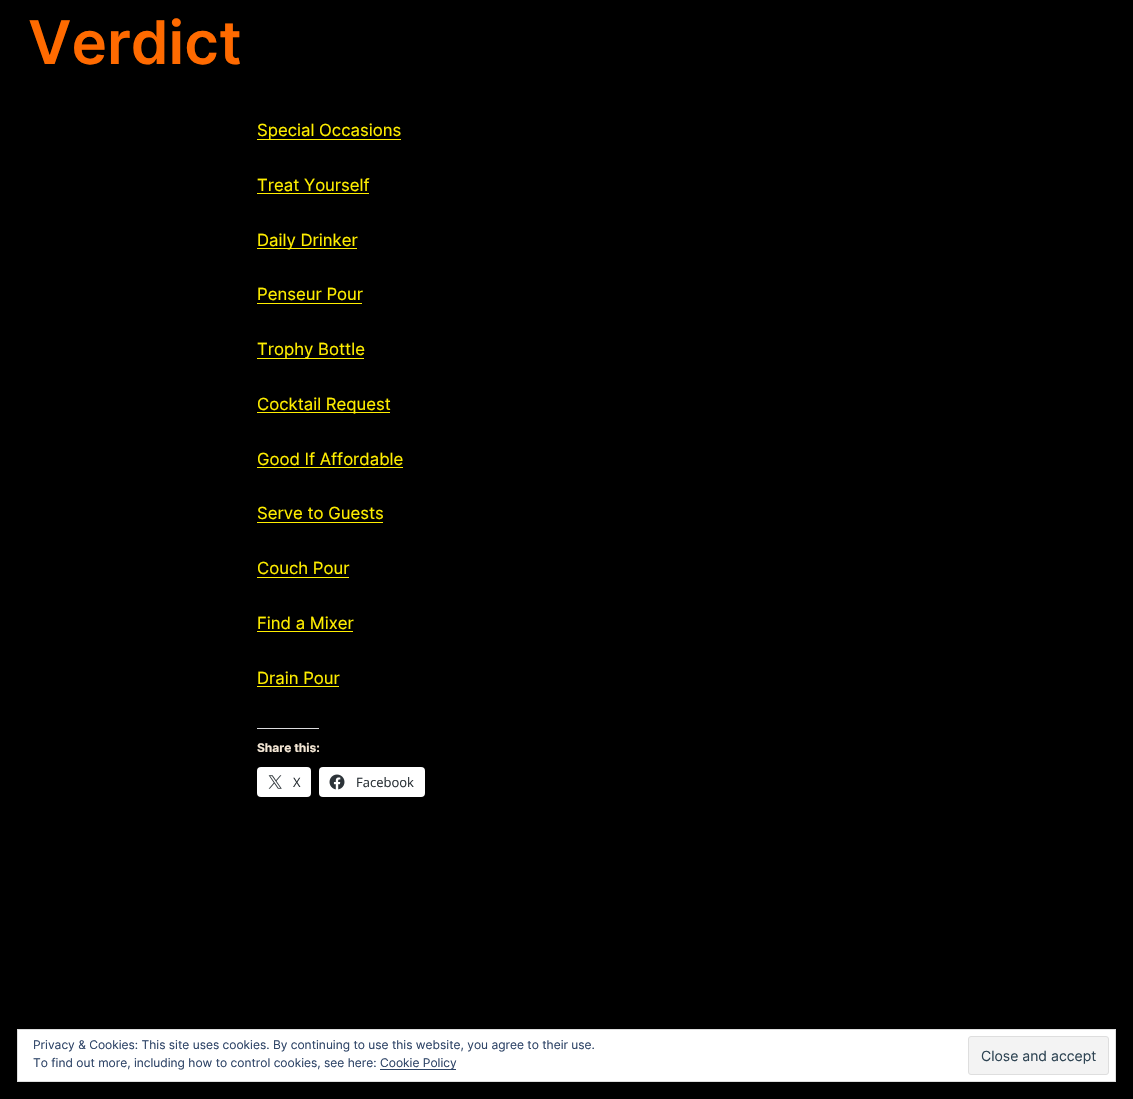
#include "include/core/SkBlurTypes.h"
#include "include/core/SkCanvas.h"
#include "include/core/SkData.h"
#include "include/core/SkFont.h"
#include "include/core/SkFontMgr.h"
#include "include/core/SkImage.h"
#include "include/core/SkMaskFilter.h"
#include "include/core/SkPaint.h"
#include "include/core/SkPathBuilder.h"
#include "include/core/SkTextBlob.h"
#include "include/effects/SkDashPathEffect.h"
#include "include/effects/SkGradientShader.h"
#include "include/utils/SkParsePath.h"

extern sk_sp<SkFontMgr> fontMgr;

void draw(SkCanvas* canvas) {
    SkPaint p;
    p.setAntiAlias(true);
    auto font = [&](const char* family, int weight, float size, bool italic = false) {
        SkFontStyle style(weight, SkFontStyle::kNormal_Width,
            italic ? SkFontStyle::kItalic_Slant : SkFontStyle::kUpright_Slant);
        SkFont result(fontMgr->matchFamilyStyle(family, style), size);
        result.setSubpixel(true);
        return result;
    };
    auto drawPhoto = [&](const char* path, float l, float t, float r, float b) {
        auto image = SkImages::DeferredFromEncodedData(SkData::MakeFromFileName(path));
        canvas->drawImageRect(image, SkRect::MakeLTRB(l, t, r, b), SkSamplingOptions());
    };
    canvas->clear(0xFF000000);
    auto font1 = font("Inter", 600, 60);
    p.setColor(0xFFFF6A00);
    canvas->drawString("Verdict", 28, 64, font1, p);
    p.setColor(0xFFFFEE00);
    canvas->drawRect(SkRect::MakeLTRB(257, 139, 401, 140), p);
    auto font2 = font("Inter", 400, 16.75f);
    canvas->drawString("Special Occasions", 257, 136, font2, p);
    canvas->drawString("Treat Yourself", 257, 191, font2, p);
    canvas->drawRect(SkRect::MakeLTRB(257, 193, 369, 194), p);
    canvas->drawRect(SkRect::MakeLTRB(257, 248, 357, 249), p);
    canvas->drawString("Daily Drinker", 257, 246, font2, p);
    canvas->drawString("Penseur Pour", 257, 300, font2, p);
    canvas->drawRect(SkRect::MakeLTRB(257, 303, 362, 304), p);
    canvas->drawRect(SkRect::MakeLTRB(257, 358, 364, 359), p);
    canvas->drawString("Trophy Bottle", 257, 355, font2, p);
    canvas->drawRect(SkRect::MakeLTRB(257, 412, 390, 413), p);
    canvas->drawString("Cocktail Request", 257, 410, font2, p);
    canvas->drawString("Good If Affordable", 257, 465, font2, p);
    canvas->drawRect(SkRect::MakeLTRB(257, 467, 403, 468), p);
    canvas->drawString("Serve to Guests", 257, 519, font2, p);
    canvas->drawRect(SkRect::MakeLTRB(257, 522, 383, 523), p);
    canvas->drawString("Couch Pour", 257, 574, font2, p);
    canvas->drawRect(SkRect::MakeLTRB(257, 577, 349, 578), p);
    canvas->drawString("Find a Mixer", 257, 629, font2, p);
    canvas->drawRect(SkRect::MakeLTRB(257, 631, 353, 632), p);
    canvas->drawString("Drain Pour", 257, 684, font2, p);
    canvas->drawRect(SkRect::MakeLTRB(257, 686, 339, 687), p);
    p.setColor(0xFFDCDCDE);
    canvas->drawRect(SkRect::MakeLTRB(257, 728, 319, 729), p);
    auto font3 = font("Inter", 700, 12);
    p.setColor(0xFFF2E5D3);
    canvas->drawString("Share this:", 257, 752, font3, p);
    p.setColor(0xFFFFFFFF);
    canvas->drawRoundRect(SkRect::MakeLTRB(257, 767, 311, 797), 4, 4, p);
    drawPhoto("media/1.png", 268, 775, 282, 789);
    auto font4 = font("Open Sans", 400, 13);
    p.setColor(0xFF2C3338);
    canvas->drawString("X", 293, 787, font4, p);
    p.setColor(0xFFFFFFFF);
    canvas->drawRoundRect(SkRect::MakeLTRB(319, 767, 425, 797), 4, 4, p);
    drawPhoto("media/2.png", 329, 774, 345, 790);
    p.setColor(0xFF2C3338);
    canvas->drawString("Facebook", 356, 787, font4, p);
    p.setColor(0xFFFFFFFF);
    canvas->drawRect(SkRect::MakeLTRB(17.5f, 1029.5f, 1115.5f, 1081.5f), p);
    p.setStyle(SkPaint::kStroke_Style);
    p.setStrokeWidth(1);
    p.setColor(0xFFDEDEDE);
    canvas->drawRect(SkRect::MakeLTRB(17.5f, 1029.5f, 1115.5f, 1081.5f), p);
    auto font5 = font("Inter", 400, 12);
    p.setStyle(SkPaint::kFill_Style);
    p.setColor(0xFF2E4467);
    canvas->drawString("Privacy & Cookies: This site uses cookies. By continuing to use this website, you agree to their use.", 33, 1049, font5, p);
    canvas->drawString("To find out more, including how to control cookies, see here:", 33, 1067, font5, p);
    canvas->drawRect(SkRect::MakeLTRB(380, 1069, 456, 1070), p);
    canvas->drawString("Cookie Policy", 380, 1067, font5, p);
    p.setColor(0xFFF3F3F3);
    canvas->drawRoundRect(SkRect::MakeLTRB(968.5f, 1036.5f, 1108.5f, 1074.5f), 2.5f, 2.5f, p);
    p.setStyle(SkPaint::kStroke_Style);
    p.setColor(0xFFDEDEDE);
    canvas->drawRoundRect(SkRect::MakeLTRB(968.5f, 1036.5f, 1108.5f, 1074.5f), 2.5f, 2.5f, p);
    auto font6 = font("Inter", 400, 14);
    p.setStyle(SkPaint::kFill_Style);
    p.setColor(0xFF2E4453);
    canvas->drawString("Close and accept", 981, 1061, font6, p);
}
